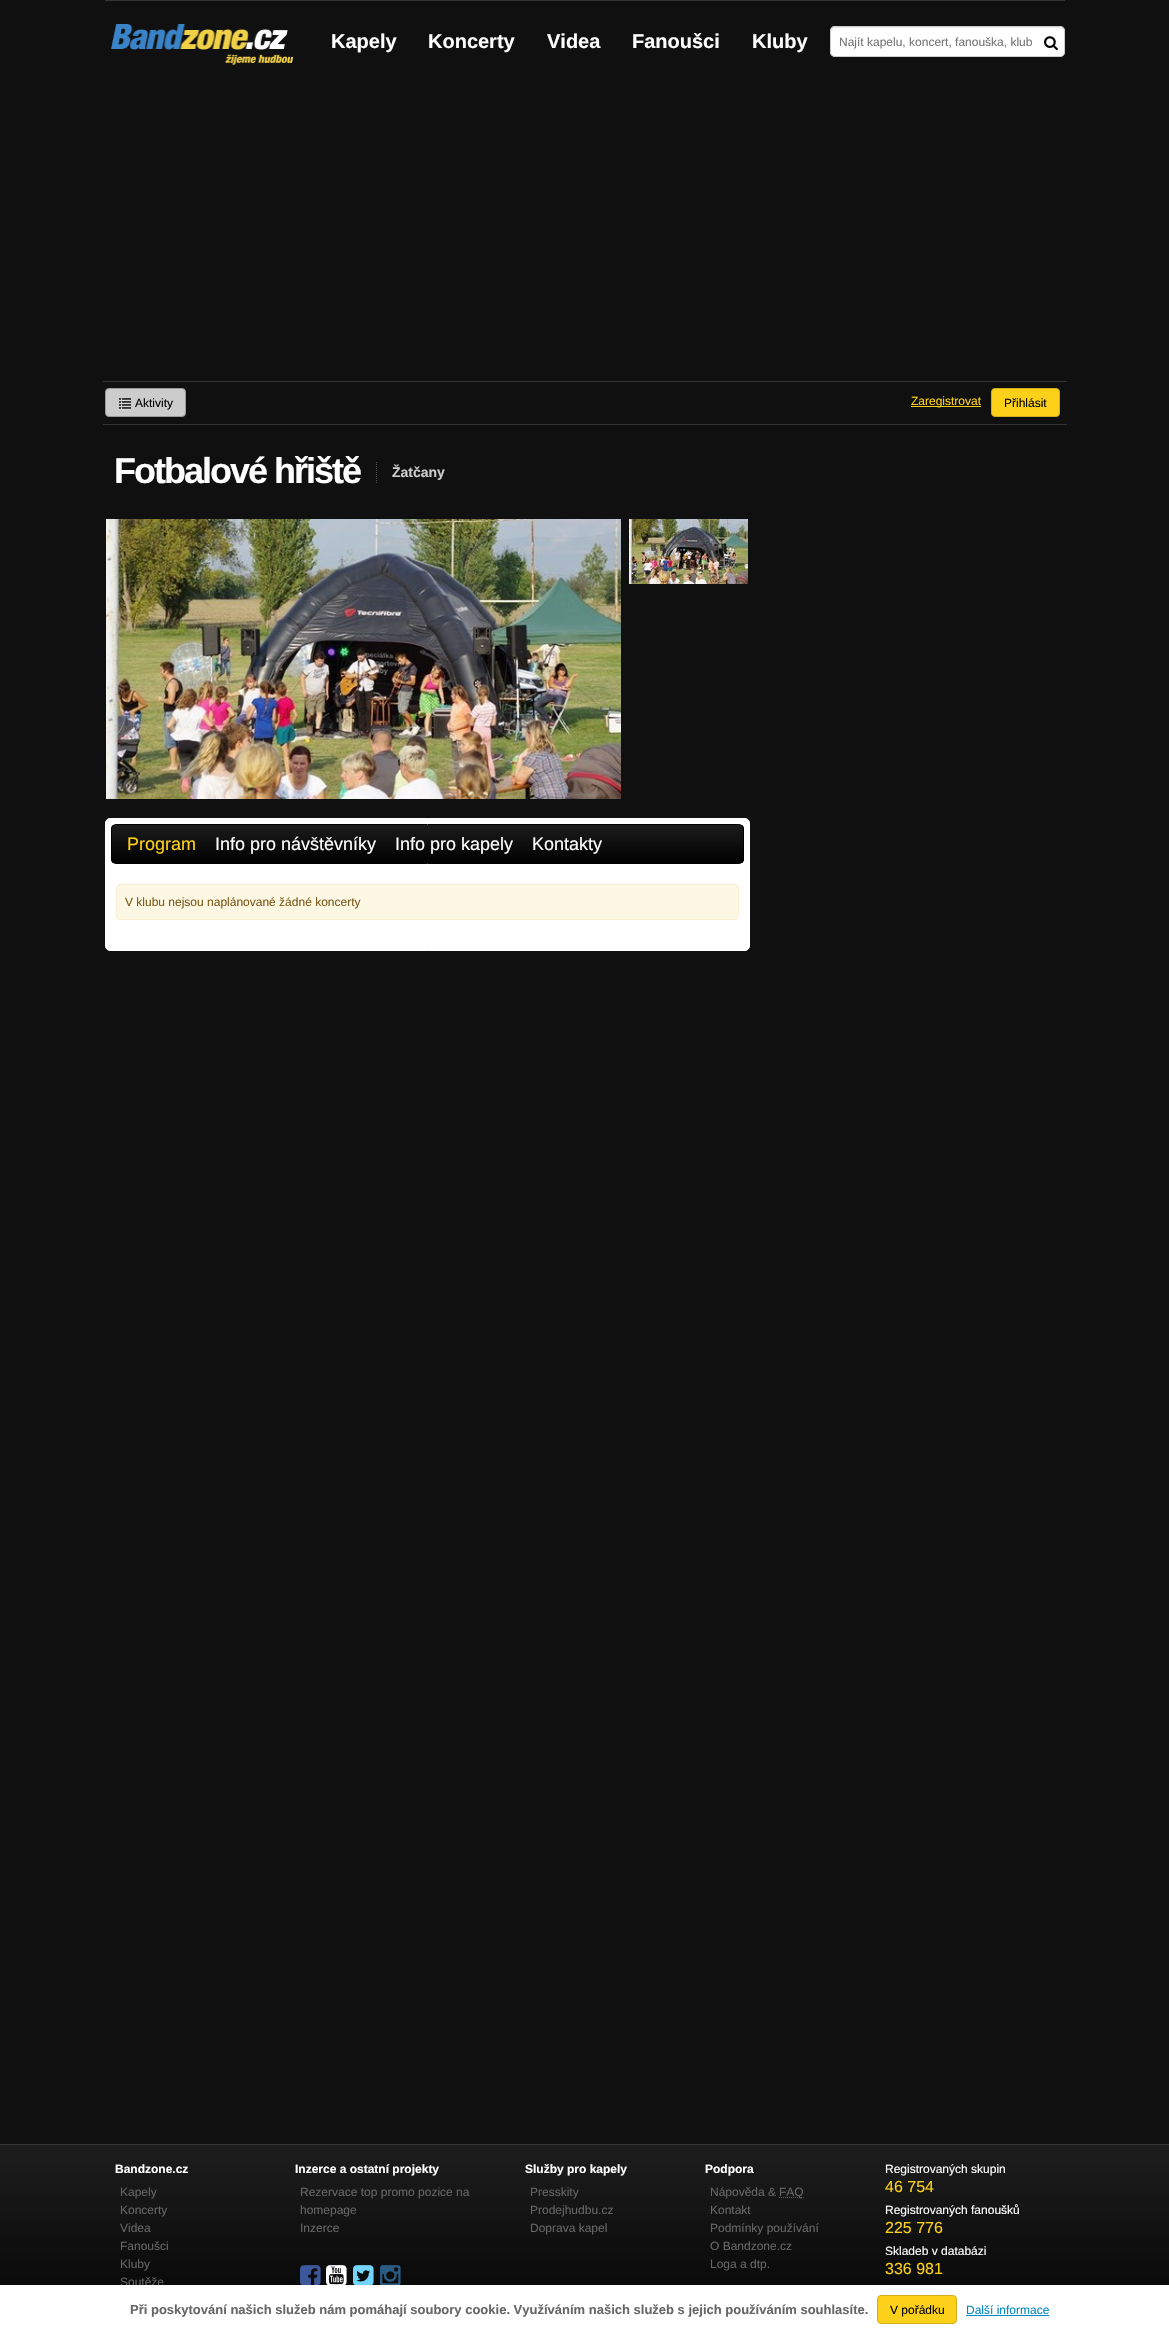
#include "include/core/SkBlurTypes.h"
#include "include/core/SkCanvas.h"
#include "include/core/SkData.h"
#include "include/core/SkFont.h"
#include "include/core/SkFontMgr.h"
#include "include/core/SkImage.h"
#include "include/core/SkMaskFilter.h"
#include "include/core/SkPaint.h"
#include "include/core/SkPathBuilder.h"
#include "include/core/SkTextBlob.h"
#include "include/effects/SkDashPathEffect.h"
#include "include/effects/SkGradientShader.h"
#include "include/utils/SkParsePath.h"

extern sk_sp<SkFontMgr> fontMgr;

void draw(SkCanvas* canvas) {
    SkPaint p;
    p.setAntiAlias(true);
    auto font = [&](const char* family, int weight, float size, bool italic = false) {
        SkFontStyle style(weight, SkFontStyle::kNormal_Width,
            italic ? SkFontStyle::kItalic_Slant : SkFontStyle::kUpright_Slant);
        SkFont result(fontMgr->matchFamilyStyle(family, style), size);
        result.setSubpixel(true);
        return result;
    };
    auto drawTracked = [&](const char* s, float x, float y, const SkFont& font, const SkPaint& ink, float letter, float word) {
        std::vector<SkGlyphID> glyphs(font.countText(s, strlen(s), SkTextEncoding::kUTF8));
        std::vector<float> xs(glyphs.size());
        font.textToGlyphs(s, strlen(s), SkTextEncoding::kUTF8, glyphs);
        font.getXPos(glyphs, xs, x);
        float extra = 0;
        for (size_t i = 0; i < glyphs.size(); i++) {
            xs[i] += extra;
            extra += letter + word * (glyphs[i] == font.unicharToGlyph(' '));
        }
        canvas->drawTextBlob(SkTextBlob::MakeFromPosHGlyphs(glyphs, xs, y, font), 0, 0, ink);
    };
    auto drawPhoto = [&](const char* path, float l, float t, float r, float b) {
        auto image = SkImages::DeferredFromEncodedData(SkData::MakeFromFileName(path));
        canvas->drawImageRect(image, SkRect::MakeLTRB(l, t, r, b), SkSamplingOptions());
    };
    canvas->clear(0xFF101010);
    p.setColor(0xFF333333);
    canvas->drawRect(SkRect::MakeLTRB(105, 0, 1065, 1), p);
    drawPhoto("media/1.png", 105, 20, 294, 65);
    auto font1 = font("Liberation Sans", 700, 20);
    p.setColor(0xFFFFFFFF);
    {
        const struct { const char* s; float x, y; } items[] = {
            {"Kapely", 331, 48},
            {"Koncerty", 428, 48},
            {"Videa", 547, 48},
            {"Fanoušci", 632, 48},
            {"Kluby", 752, 48},
        };
        for (auto [s, x, y] : items) {
            canvas->drawString(s, x, y, font1, p);
        }
    }
    canvas->drawRoundRect(SkRect::MakeLTRB(830, 26, 1065, 57), 5, 5, p);
    p.setColor(0xFFECECEC);
    canvas->drawPath(SkPathBuilder().moveTo(835, 28).lineTo(1060, 28).cubicTo(1062, 28, 1064, 30, 1064, 32).cubicTo(1064, 29, 1063, 27, 1060, 27).lineTo(835, 27).cubicTo(832, 27, 831, 29, 831, 32).cubicTo(831, 30, 833, 28, 835, 28).close().detach(), p);
    p.setStyle(SkPaint::kStroke_Style);
    p.setStrokeWidth(1);
    p.setColor(0xFFCCCCCC);
    canvas->drawRoundRect(SkRect::MakeLTRB(830.5f, 26.5f, 1064.5f, 56.5f), 4.5f, 4.5f, p);
    auto font2 = font("Liberation Sans", 400, 12);
    p.setStyle(SkPaint::kFill_Style);
    p.setColor(0xFF757575);
    canvas->drawString("Najít kapelu, koncert, fanouška, klub", 839, 46, font2, p);
    drawPhoto("media/2.png", 1044, 36, 1058, 51);
    p.setColor(0xFF333333);
    canvas->drawRect(SkRect::MakeLTRB(103, 381, 1067, 382), p);
    canvas->drawRect(SkRect::MakeLTRB(103, 424, 1067, 425), p);
    p.setColor(0xFFCCCCCC);
    canvas->drawRoundRect(SkRect::MakeLTRB(105.5f, 388.5f, 185.5f, 416.5f), 3.5f, 3.5f, p);
    p.setStyle(SkPaint::kStroke_Style);
    p.setColor(0xFF999999);
    canvas->drawRoundRect(SkRect::MakeLTRB(105.5f, 388.5f, 185.5f, 416.5f), 3.5f, 3.5f, p);
    drawPhoto("media/3.png", 119, 398, 131, 410);
    p.setStyle(SkPaint::kFill_Style);
    p.setColor(0xFF000000);
    canvas->drawString("Aktivity", 135, 407, font2, p);
    p.setColor(0xFFFDD119);
    canvas->drawRect(SkRect::MakeLTRB(911, 406, 981, 407), p);
    canvas->drawString("Zaregistrovat", 911, 405, font2, p);
    canvas->drawRoundRect(SkRect::MakeLTRB(991.5f, 388.5f, 1059.5f, 416.5f), 3.5f, 3.5f, p);
    p.setStyle(SkPaint::kStroke_Style);
    p.setColor(0xFFD1AE1D);
    canvas->drawRoundRect(SkRect::MakeLTRB(991.5f, 388.5f, 1059.5f, 416.5f), 3.5f, 3.5f, p);
    p.setStyle(SkPaint::kFill_Style);
    p.setColor(0xFF000000);
    canvas->drawString("Přihlásit", 1004, 407, font2, p);
    auto font3 = font("Liberation Sans", 700, 36);
    p.setColor(0xFFFFFFFF);
    drawTracked("Fotbalové hřiště", 114, 483, font3, p, -2, 0);
    p.setStyle(SkPaint::kStroke_Style);
    p.setColor(0xFF524E4E);
    p.setPathEffect(SkDashPathEffect::Make({{1, 1}}, 0));
    canvas->drawPath(SkPathBuilder().moveTo(376.5f, 462).lineTo(376.5f, 483).detach(), p);
    p.setPathEffect(nullptr);
    auto font4 = font("Liberation Sans", 700, 14);
    p.setStyle(SkPaint::kFill_Style);
    p.setColor(0xFFCCCCCC);
    canvas->drawString("Žatčany", 392, 477, font4, p);
    drawPhoto("media/4.png", 106, 519, 621, 799);
    drawPhoto("media/5.png", 629, 519, 748, 584);
    p.setColor(0xFFFFFFFF);
    canvas->drawRoundRect(SkRect::MakeLTRB(105.5f, 818.5f, 749.5f, 950.5f), 4.5f, 4.5f, p);
    p.setStyle(SkPaint::kStroke_Style);
    canvas->drawRoundRect(SkRect::MakeLTRB(105.5f, 818.5f, 749.5f, 950.5f), 4.5f, 4.5f, p);
    canvas->save();
    canvas->clipPath(SkPathBuilder().moveTo(116, 824).lineTo(739, 824).cubicTo(742, 824, 744, 826, 744, 829).lineTo(744, 859).cubicTo(744, 862, 742, 864, 739, 864).lineTo(116, 864).cubicTo(113, 864, 111, 862, 111, 859).lineTo(111, 829).cubicTo(111, 826, 113, 824, 116, 824).close().detach(), true);
    p.setStyle(SkPaint::kFill_Style);
    {
        const SkColor colors[] = {0xFF1C1C1C, 0xFF000000};
        const float stops[] = {0, 1};
        const SkPoint ends[] = {{112, 825}, {112, 863}};
        p.setShader(SkGradientShader::MakeLinear(ends, colors, stops, 2, SkTileMode::kClamp));
        p.setAlpha(255);
    }
    canvas->drawRect(SkRect::MakeLTRB(111, 825, 744, 863), p);
    canvas->restore();
    p.setStyle(SkPaint::kStroke_Style);
    p.setShader(nullptr);
    p.setColor(0xFF000000);
    canvas->drawRoundRect(SkRect::MakeLTRB(111.5f, 824.5f, 743.5f, 863.5f), 4.5f, 4.5f, p);
    auto font5 = font("Liberation Sans", 400, 18);
    p.setStyle(SkPaint::kFill_Style);
    p.setColor(0xFFFDD119);
    canvas->drawString("Program", 127, 850, font5, p);
    p.setColor(0xFFFFFFFF);
    {
        const struct { const char* s; float x, y; } items[] = {
            {"Info pro návštěvníky", 215, 850},
            {"Info pro kapely", 395, 850},
            {"Kontakty", 532, 850},
        };
        for (auto [s, x, y] : items) {
            canvas->drawString(s, x, y, font5, p);
        }
    }
    p.setColor(0xFFFCF8E3);
    canvas->drawRoundRect(SkRect::MakeLTRB(116.5f, 884.5f, 738.5f, 919.5f), 3.5f, 3.5f, p);
    p.setStyle(SkPaint::kStroke_Style);
    p.setColor(0xFFFBEED5);
    canvas->drawRoundRect(SkRect::MakeLTRB(116.5f, 884.5f, 738.5f, 919.5f), 3.5f, 3.5f, p);
    p.setStyle(SkPaint::kFill_Style);
    p.setColor(0xFF7D591B);
    canvas->drawString("V klubu nejsou naplánované žádné koncerty", 125, 906, font2, p);
    drawPhoto("media/6.png", 0, 2145, 1169, 2285);
    p.setColor(0xFF393939);
    canvas->drawRect(SkRect::MakeLTRB(0, 2144, 1169, 2145), p);
    auto font6 = font("Liberation Sans", 700, 12);
    p.setColor(0xFFFFFFFF);
    canvas->drawString("Bandzone.cz", 115, 2173, font6, p);
    p.setColor(0xFF666666);
    {
        const struct { const char* s; float x, y; } items[] = {
            {"Kapely", 120, 2196},
            {"Koncerty", 120, 2214},
            {"Videa", 120, 2232},
            {"Fanoušci", 120, 2250},
            {"Kluby", 120, 2268},
            {"Soutěže", 120, 2286},
        };
        for (auto [s, x, y] : items) {
            canvas->drawString(s, x, y, font2, p);
        }
    }
    p.setColor(0xFFFFFFFF);
    canvas->drawString("Inzerce a ostatní projekty", 295, 2173, font6, p);
    p.setColor(0xFF666666);
    {
        const struct { const char* s; float x, y; } items[] = {
            {"Rezervace top promo pozice na", 300, 2196},
            {"homepage", 300, 2214},
            {"Inzerce", 300, 2232},
        };
        for (auto [s, x, y] : items) {
            canvas->drawString(s, x, y, font2, p);
        }
    }
    drawPhoto("media/7.png", 300, 2265, 321, 2285);
    drawPhoto("media/8.png", 326, 2265, 347, 2285);
    drawPhoto("media/9.png", 353, 2265, 374, 2285);
    drawPhoto("media/10.png", 380, 2265, 401, 2285);
    p.setColor(0xFFFFFFFF);
    canvas->drawString("Služby pro kapely", 525, 2173, font6, p);
    p.setColor(0xFF666666);
    {
        const struct { const char* s; float x, y; } items[] = {
            {"Presskity", 530, 2196},
            {"Prodejhudbu.cz", 530, 2214},
            {"Doprava kapel", 530, 2232},
        };
        for (auto [s, x, y] : items) {
            canvas->drawString(s, x, y, font2, p);
        }
    }
    p.setColor(0xFFFFFFFF);
    canvas->drawString("Podpora", 705, 2173, font6, p);
    p.setColor(0xFF666666);
    canvas->drawString("Nápověda &", 710, 2196, font2, p);
    p.setStyle(SkPaint::kStroke_Style);
    p.setPathEffect(SkDashPathEffect::Make({{1, 1}}, 0));
    canvas->drawPath(SkPathBuilder().moveTo(779, 2197.5f).lineTo(803.5f, 2197.5f).detach(), p);
    p.setPathEffect(nullptr);
    p.setStyle(SkPaint::kFill_Style);
    {
        const struct { const char* s; float x, y; } items[] = {
            {"FAQ", 779, 2196},
            {"Kontakt", 710, 2214},
            {"Podmínky používání", 710, 2232},
            {"O Bandzone.cz", 710, 2250},
            {"Loga a dtp.", 710, 2268},
        };
        for (auto [s, x, y] : items) {
            canvas->drawString(s, x, y, font2, p);
        }
    }
    p.setColor(0xFFFFFFFF);
    canvas->drawString("Registrovaných skupin", 885, 2173, font2, p);
    auto font7 = font("Liberation Sans", 400, 16);
    p.setColor(0xFFFDD119);
    canvas->drawString("46 754", 885, 2192, font7, p);
    p.setColor(0xFFFFFFFF);
    canvas->drawString("Registrovaných fanoušků", 885, 2214, font2, p);
    p.setColor(0xFFFDD119);
    canvas->drawString("225 776", 885, 2233, font7, p);
    p.setColor(0xFFFFFFFF);
    canvas->drawString("Skladeb v databázi", 885, 2255, font2, p);
    p.setColor(0xFFFDD119);
    canvas->drawString("336 981", 885, 2274, font7, p);
    p.setColor(0xFFFFFFFF);
    canvas->drawRect(SkRect::MakeLTRB(0, 2285, 1169, 2334), p);
    auto font8 = font("Liberation Sans", 700, 13);
    p.setColor(0xFF666666);
    canvas->drawString("Při poskytování našich služeb nám pomáhají soubory cookie. Využíváním našich služeb s jejich používáním souhlasíte.", 130, 2314, font8, p);
    p.setColor(0xFFFDD119);
    canvas->drawRoundRect(SkRect::MakeLTRB(877.5f, 2295.5f, 956.5f, 2323.5f), 3.5f, 3.5f, p);
    p.setStyle(SkPaint::kStroke_Style);
    p.setColor(0xFFD1AE1D);
    canvas->drawRoundRect(SkRect::MakeLTRB(877.5f, 2295.5f, 956.5f, 2323.5f), 3.5f, 3.5f, p);
    p.setStyle(SkPaint::kFill_Style);
    p.setColor(0xFF000000);
    canvas->drawString("V pořádku", 890, 2314, font2, p);
    p.setColor(0xFF0187C5);
    canvas->drawString("Další informace", 966, 2314, font2, p);
    canvas->drawRect(SkRect::MakeLTRB(966, 2315, 1049, 2316), p);
}
